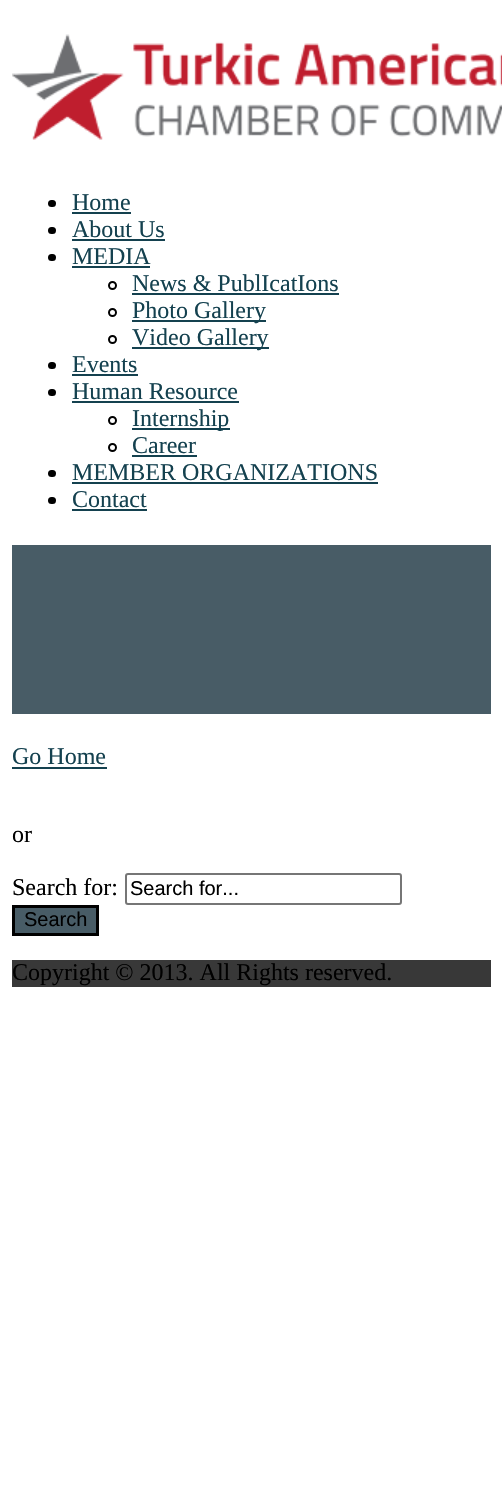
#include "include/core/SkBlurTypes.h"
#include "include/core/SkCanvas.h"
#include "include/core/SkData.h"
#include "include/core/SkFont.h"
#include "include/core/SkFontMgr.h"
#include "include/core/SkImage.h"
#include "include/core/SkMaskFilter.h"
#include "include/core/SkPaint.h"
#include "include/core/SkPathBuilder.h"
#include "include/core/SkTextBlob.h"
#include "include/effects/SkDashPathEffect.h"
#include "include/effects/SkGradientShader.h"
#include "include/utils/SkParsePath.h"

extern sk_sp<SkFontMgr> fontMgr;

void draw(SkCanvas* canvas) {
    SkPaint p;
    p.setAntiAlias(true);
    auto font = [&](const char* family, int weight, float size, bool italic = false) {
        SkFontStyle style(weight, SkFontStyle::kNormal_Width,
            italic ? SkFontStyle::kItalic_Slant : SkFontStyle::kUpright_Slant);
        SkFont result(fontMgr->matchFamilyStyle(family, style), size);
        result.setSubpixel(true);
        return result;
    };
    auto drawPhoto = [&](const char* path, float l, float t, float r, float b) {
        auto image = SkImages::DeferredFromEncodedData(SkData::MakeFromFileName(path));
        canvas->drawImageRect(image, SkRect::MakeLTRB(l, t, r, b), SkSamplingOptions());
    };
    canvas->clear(0xFFFFFFFF);
    drawPhoto("media/1.png", 12, 34, 502, 140);
    p.setColor(0xFF000000);
    canvas->drawRoundRect(SkRect::MakeLTRB(48, 200, 56, 207), 3.5f, 3.5f, p);
    auto font1 = font("Liberation Serif", 400, 24);
    p.setColor(0xFF14414F);
    canvas->drawString("Home", 72, 210, font1, p);
    canvas->drawRect(SkRect::MakeLTRB(72, 212, 131, 214), p);
    p.setColor(0xFF000000);
    canvas->drawRoundRect(SkRect::MakeLTRB(48, 227, 56, 234), 3.5f, 3.5f, p);
    p.setColor(0xFF14414F);
    canvas->drawString("About Us", 72, 237, font1, p);
    canvas->drawRect(SkRect::MakeLTRB(72, 239, 165, 241), p);
    p.setColor(0xFF000000);
    canvas->drawRoundRect(SkRect::MakeLTRB(48, 254, 56, 261), 3.5f, 3.5f, p);
    p.setColor(0xFF14414F);
    canvas->drawString("MEDIA", 72, 264, font1, p);
    canvas->drawRect(SkRect::MakeLTRB(72, 266, 150, 268), p);
    p.setStyle(SkPaint::kStroke_Style);
    p.setStrokeWidth(2);
    p.setColor(0xFF000000);
    canvas->drawCircle(112.5f, 285.5f, 3.5f, p);
    p.setStyle(SkPaint::kFill_Style);
    p.setColor(0xFF14414F);
    canvas->drawString("News & PublIcatIons", 132, 291, font1, p);
    canvas->drawRect(SkRect::MakeLTRB(132, 293, 339, 295), p);
    p.setStyle(SkPaint::kStroke_Style);
    p.setColor(0xFF000000);
    canvas->drawCircle(112.5f, 312.5f, 3.5f, p);
    p.setStyle(SkPaint::kFill_Style);
    p.setColor(0xFF14414F);
    canvas->drawRect(SkRect::MakeLTRB(132, 320, 266, 322), p);
    canvas->drawString("Photo Gallery", 132, 318, font1, p);
    p.setStyle(SkPaint::kStroke_Style);
    p.setColor(0xFF000000);
    canvas->drawCircle(112.5f, 339.5f, 3.5f, p);
    p.setStyle(SkPaint::kFill_Style);
    p.setColor(0xFF14414F);
    canvas->drawRect(SkRect::MakeLTRB(132, 347, 269, 349), p);
    canvas->drawString("Video Gallery", 132, 345, font1, p);
    p.setColor(0xFF000000);
    canvas->drawRoundRect(SkRect::MakeLTRB(48, 362, 56, 369), 3.5f, 3.5f, p);
    p.setColor(0xFF14414F);
    canvas->drawString("Events", 72, 372, font1, p);
    canvas->drawRect(SkRect::MakeLTRB(72, 374, 138, 376), p);
    p.setColor(0xFF000000);
    canvas->drawRoundRect(SkRect::MakeLTRB(48, 389, 56, 396), 3.5f, 3.5f, p);
    p.setColor(0xFF14414F);
    canvas->drawString("Human Resource", 72, 399, font1, p);
    canvas->drawRect(SkRect::MakeLTRB(72, 401, 239, 403), p);
    p.setStyle(SkPaint::kStroke_Style);
    p.setColor(0xFF000000);
    canvas->drawCircle(112.5f, 420.5f, 3.5f, p);
    p.setStyle(SkPaint::kFill_Style);
    p.setColor(0xFF14414F);
    canvas->drawRect(SkRect::MakeLTRB(132, 428, 230, 430), p);
    canvas->drawString("Internship", 132, 426, font1, p);
    p.setStyle(SkPaint::kStroke_Style);
    p.setColor(0xFF000000);
    canvas->drawCircle(112.5f, 447.5f, 3.5f, p);
    p.setStyle(SkPaint::kFill_Style);
    p.setColor(0xFF14414F);
    canvas->drawString("Career", 132, 453, font1, p);
    canvas->drawRect(SkRect::MakeLTRB(132, 455, 197, 457), p);
    p.setColor(0xFF000000);
    canvas->drawRoundRect(SkRect::MakeLTRB(48, 470, 56, 477), 3.5f, 3.5f, p);
    p.setColor(0xFF14414F);
    canvas->drawString("MEMBER ORGANIZATIONS", 72, 480, font1, p);
    canvas->drawRect(SkRect::MakeLTRB(72, 482, 378, 484), p);
    p.setColor(0xFF000000);
    canvas->drawRoundRect(SkRect::MakeLTRB(48, 497, 56, 504), 3.5f, 3.5f, p);
    p.setColor(0xFF14414F);
    canvas->drawString("Contact", 72, 507, font1, p);
    canvas->drawRect(SkRect::MakeLTRB(72, 509, 147, 511), p);
    p.setColor(0xFF485C66);
    canvas->drawRect(SkRect::MakeLTRB(12, 545, 491, 714), p);
    p.setColor(0xFF14414F);
    canvas->drawString("Go Home", 12, 764, font1, p);
    canvas->drawRect(SkRect::MakeLTRB(12, 767, 107, 769), p);
    p.setColor(0xFF000000);
    canvas->drawString("or", 12, 842, font1, p);
    canvas->drawString("Search for:", 12, 895, font1, p);
    p.setStyle(SkPaint::kStroke_Style);
    p.setColor(0xFF767676);
    canvas->drawRoundRect(SkRect::MakeLTRB(126, 874, 401, 904), 2, 2, p);
    auto font2 = font("Liberation Sans", 400, 20);
    p.setStyle(SkPaint::kFill_Style);
    p.setColor(0xFF000000);
    canvas->drawString("Search for...", 130, 895, font2, p);
    p.setColor(0xFF485C66);
    canvas->drawRect(SkRect::MakeLTRB(13.5f, 906.5f, 97.5f, 934.5f), p);
    p.setStyle(SkPaint::kStroke_Style);
    p.setStrokeWidth(3);
    p.setColor(0xFF000000);
    canvas->drawRect(SkRect::MakeLTRB(13.5f, 906.5f, 97.5f, 934.5f), p);
    p.setStyle(SkPaint::kFill_Style);
    canvas->drawString("Search", 24, 926, font2, p);
    p.setColor(0xFF383838);
    canvas->drawRect(SkRect::MakeLTRB(12, 960, 491, 987), p);
    p.setColor(0xFF000000);
    canvas->drawString("Copyright © 2013. All Rights reserved.", 12, 980, font1, p);
}
